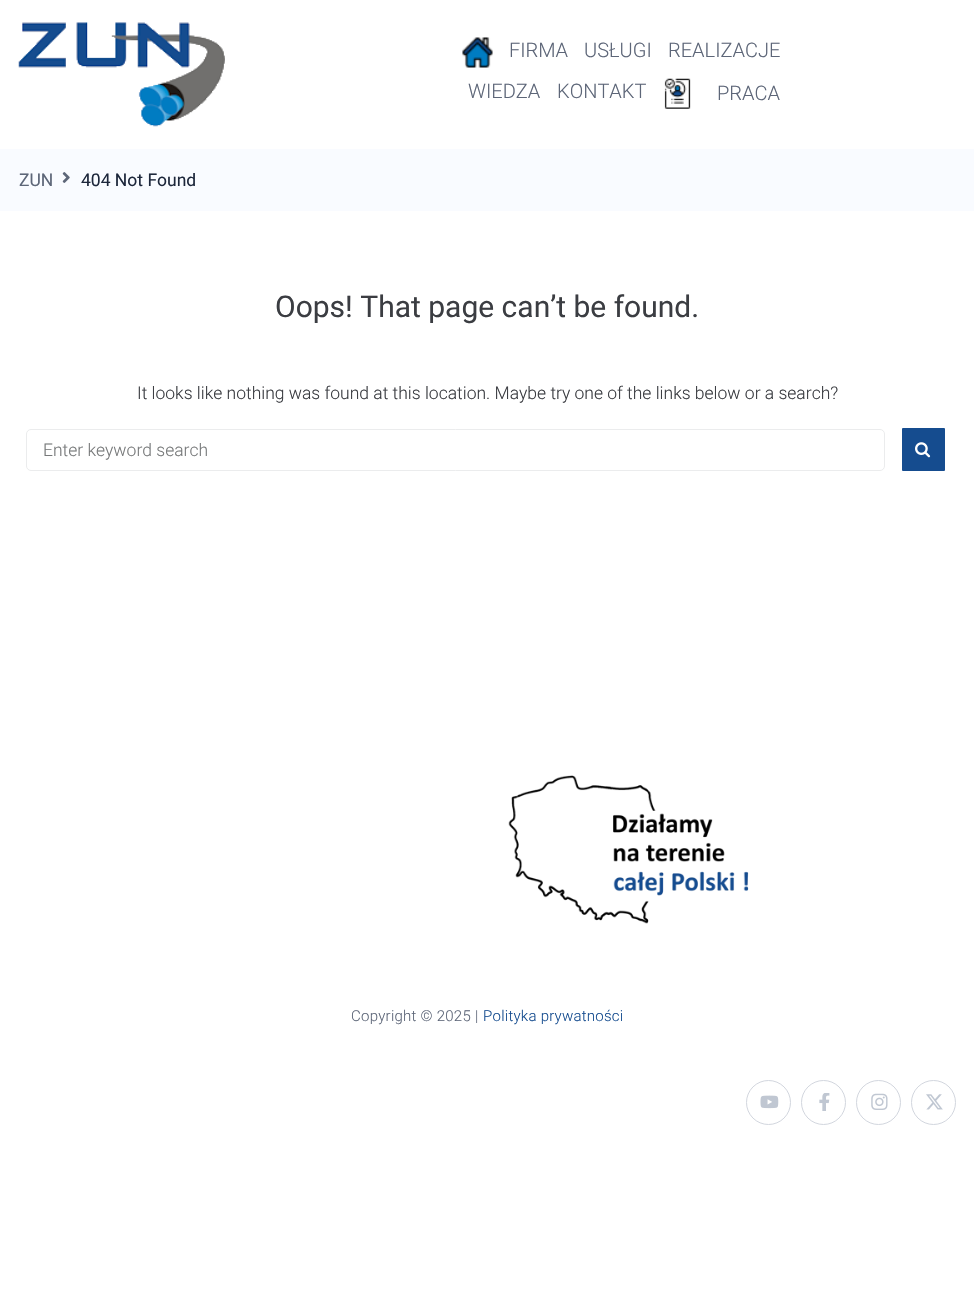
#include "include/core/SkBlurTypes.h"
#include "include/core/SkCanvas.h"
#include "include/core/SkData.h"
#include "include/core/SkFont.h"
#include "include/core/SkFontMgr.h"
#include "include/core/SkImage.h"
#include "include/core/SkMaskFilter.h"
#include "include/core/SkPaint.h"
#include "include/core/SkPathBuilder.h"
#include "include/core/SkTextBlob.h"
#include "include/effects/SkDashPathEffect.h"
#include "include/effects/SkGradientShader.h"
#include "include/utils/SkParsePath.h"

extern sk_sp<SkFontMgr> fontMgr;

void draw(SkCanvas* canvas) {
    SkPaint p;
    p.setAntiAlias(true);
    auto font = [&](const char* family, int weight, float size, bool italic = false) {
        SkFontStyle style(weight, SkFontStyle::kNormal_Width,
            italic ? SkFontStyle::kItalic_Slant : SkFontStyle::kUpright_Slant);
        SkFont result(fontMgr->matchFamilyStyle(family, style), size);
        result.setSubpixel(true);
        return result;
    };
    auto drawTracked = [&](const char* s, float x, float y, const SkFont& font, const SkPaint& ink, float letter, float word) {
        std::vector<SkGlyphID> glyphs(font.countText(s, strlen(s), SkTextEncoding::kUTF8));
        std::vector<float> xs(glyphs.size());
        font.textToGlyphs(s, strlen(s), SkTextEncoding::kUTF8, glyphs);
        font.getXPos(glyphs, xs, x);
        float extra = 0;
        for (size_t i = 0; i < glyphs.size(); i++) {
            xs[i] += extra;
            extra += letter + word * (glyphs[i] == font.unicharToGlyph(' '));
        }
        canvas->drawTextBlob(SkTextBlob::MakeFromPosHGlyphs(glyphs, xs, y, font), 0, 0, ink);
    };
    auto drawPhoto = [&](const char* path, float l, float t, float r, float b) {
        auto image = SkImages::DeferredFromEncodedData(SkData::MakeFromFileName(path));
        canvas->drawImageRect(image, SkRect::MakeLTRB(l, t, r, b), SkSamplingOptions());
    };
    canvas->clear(0xFFFFFFFF);
    drawPhoto("media/1.png", 18, 22, 225, 127);
    drawPhoto("media/2.png", 462, 37, 493, 68);
    auto font1 = font("Roboto", 300, 20);
    p.setColor(0xFF5D6678);
    {
        const struct { const char* s; float x, y; } items[] = {
            {"FIRMA", 509, 57},
            {"USŁUGI", 584, 57},
            {"REALIZACJE", 668, 57},
            {"WIEDZA", 468, 98},
            {"KONTAKT", 557, 98},
        };
        for (auto [s, x, y] : items) {
            canvas->drawString(s, x, y, font1, p);
        }
    }
    drawPhoto("media/3.png", 664, 78, 691, 109);
    canvas->drawString("PRACA", 717, 100, font1, p);
    p.setColor(0xFFF9FBFF);
    canvas->drawRect(SkRect::MakeLTRB(0, 149, 974, 211), p);
    auto font2 = font("Roboto", 400, 17.5f);
    p.setColor(0xFF5D6678);
    canvas->drawString("ZUN", 19, 186, font2, p);
    drawPhoto("media/4.png", 62, 172, 70, 183);
    p.setColor(0xFF1D273B);
    canvas->drawString("404 Not Found", 81, 186, font2, p);
    auto font3 = font("Roboto", 400, 30);
    p.setColor(0xFF3B3D42);
    canvas->drawString("Oops! That page can’t be found.", 275, 317, font3, p);
    auto font4 = font("Roboto", 300, 17.5f);
    canvas->drawString("It looks like nothing was found at this location. Maybe try one of the links below or a search?", 137, 399, font4, p);
    p.setStyle(SkPaint::kStroke_Style);
    p.setStrokeWidth(1);
    p.setColor(0xFFEBECED);
    canvas->drawRoundRect(SkRect::MakeLTRB(26.5f, 429.5f, 884.5f, 470.5f), 4.5f, 4.5f, p);
    p.setStyle(SkPaint::kFill_Style);
    p.setColor(0xFF77797A);
    canvas->drawString("Enter keyword search", 43, 456, font4, p);
    p.setColor(0xFF154C8F);
    canvas->drawRoundRect(SkRect::MakeLTRB(900, 426, 947, 473), 3, 3, p);
    p.setStyle(SkPaint::kStroke_Style);
    p.setStrokeWidth(4);
    p.setColor(0xFFFFFFFF);
    canvas->drawRoundRect(SkRect::MakeLTRB(900, 426, 947, 473), 3, 3, p);
    drawPhoto("media/5.png", 915, 442, 931, 458);
    drawPhoto("media/6.png", 508, 775, 749, 924);
    auto font5 = font("Roboto", 300, 15);
    p.setStyle(SkPaint::kFill_Style);
    p.setColor(0xFF5D6678);
    drawTracked("Copyright © 2025 |", 351, 1021, font5, p, 0.25f, 0);
    p.setColor(0xFF154C8F);
    drawTracked("Polityka prywatności", 483, 1021, font5, p, 0.25f, 0);
    p.setStyle(SkPaint::kStroke_Style);
    p.setStrokeWidth(1);
    p.setColor(0xFFD2D6DE);
    canvas->drawCircle(768.5f, 1102.5f, 22, p);
    drawPhoto("media/7.png", 760, 1095, 779, 1109);
    canvas->drawCircle(823.5f, 1102.5f, 22, p);
    drawPhoto("media/8.png", 819, 1093, 830, 1111);
    canvas->drawCircle(878.5f, 1102.5f, 22, p);
    drawPhoto("media/9.png", 871, 1093, 888, 1110);
    canvas->drawCircle(933.5f, 1102.5f, 22, p);
    drawPhoto("media/10.png", 926, 1094, 943, 1110);
}
